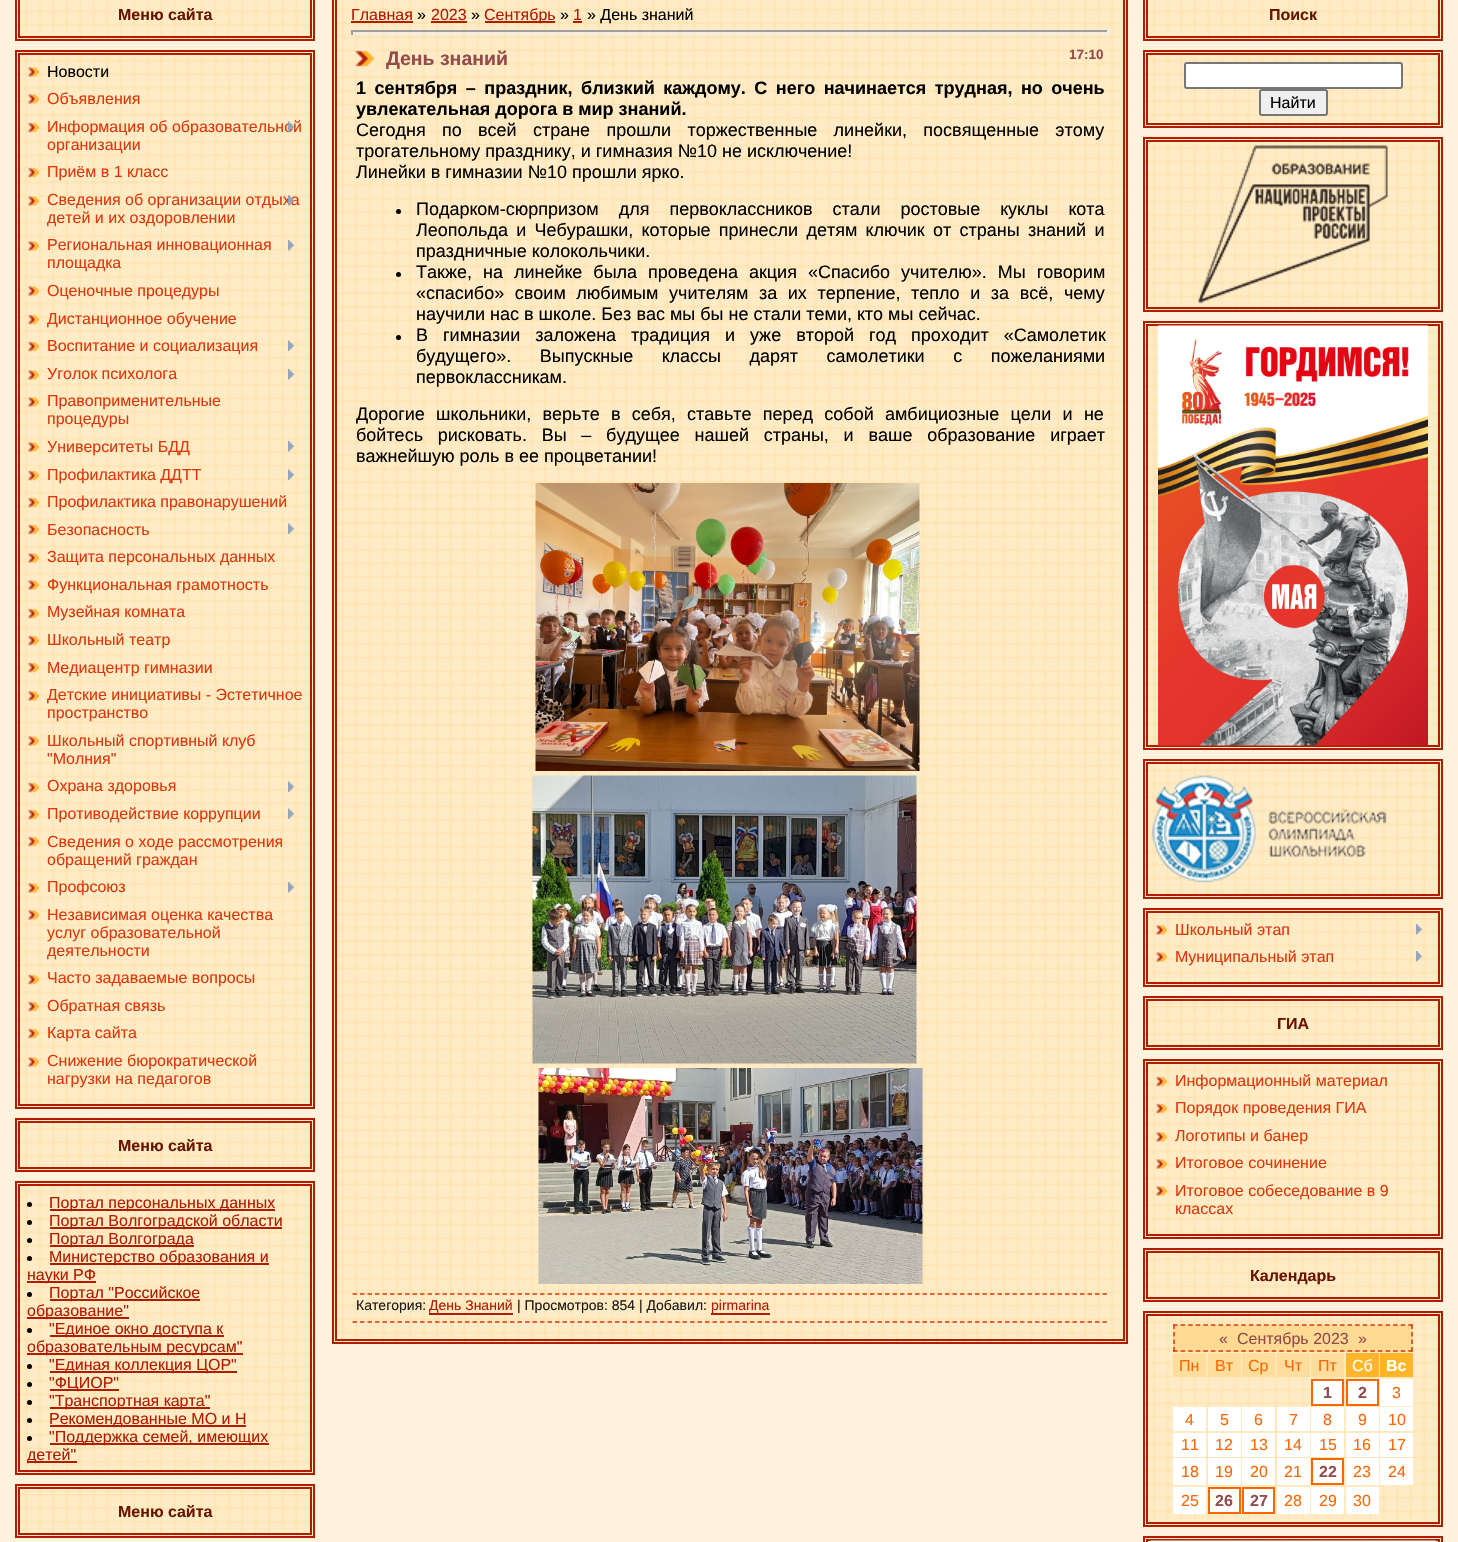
#include "include/core/SkBlurTypes.h"
#include "include/core/SkCanvas.h"
#include "include/core/SkData.h"
#include "include/core/SkFont.h"
#include "include/core/SkFontMgr.h"
#include "include/core/SkImage.h"
#include "include/core/SkMaskFilter.h"
#include "include/core/SkPaint.h"
#include "include/core/SkPathBuilder.h"
#include "include/core/SkTextBlob.h"
#include "include/effects/SkDashPathEffect.h"
#include "include/effects/SkGradientShader.h"
#include "include/utils/SkParsePath.h"

extern sk_sp<SkFontMgr> fontMgr;

void draw(SkCanvas* canvas) {
    SkPaint p;
    p.setAntiAlias(true);
    auto font = [&](const char* family, int weight, float size, bool italic = false) {
        SkFontStyle style(weight, SkFontStyle::kNormal_Width,
            italic ? SkFontStyle::kItalic_Slant : SkFontStyle::kUpright_Slant);
        SkFont result(fontMgr->matchFamilyStyle(family, style), size);
        result.setSubpixel(true);
        return result;
    };
    auto drawTracked = [&](const char* s, float x, float y, const SkFont& font, const SkPaint& ink, float letter, float word) {
        std::vector<SkGlyphID> glyphs(font.countText(s, strlen(s), SkTextEncoding::kUTF8));
        std::vector<float> xs(glyphs.size());
        font.textToGlyphs(s, strlen(s), SkTextEncoding::kUTF8, glyphs);
        font.getXPos(glyphs, xs, x);
        float extra = 0;
        for (size_t i = 0; i < glyphs.size(); i++) {
            xs[i] += extra;
            extra += letter + word * (glyphs[i] == font.unicharToGlyph(' '));
        }
        canvas->drawTextBlob(SkTextBlob::MakeFromPosHGlyphs(glyphs, xs, y, font), 0, 0, ink);
    };
    auto drawPhoto = [&](const char* path, float l, float t, float r, float b) {
        auto image = SkImages::DeferredFromEncodedData(SkData::MakeFromFileName(path));
        canvas->drawImageRect(image, SkRect::MakeLTRB(l, t, r, b), SkSamplingOptions());
    };
    canvas->clear(0xFFFFF3DD);
    drawPhoto("media/1.png", 17, 0, 313, 39);
    p.setStyle(SkPaint::kStroke_Style);
    p.setStrokeWidth(2);
    p.setColor(0xFFB21B04);
    canvas->drawRect(SkRect::MakeLTRB(16, -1, 314, 40), p);
    canvas->drawRect(SkRect::MakeLTRB(19, -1, 311, 37), p);
    auto font1 = font("Liberation Sans", 700, 16);
    p.setStyle(SkPaint::kFill_Style);
    p.setColor(0xFF691400);
    canvas->drawString("Меню сайта", 118, 20, font1, p);
    drawPhoto("media/2.png", 15, 49, 315, 1107);
    p.setStyle(SkPaint::kStroke_Style);
    p.setColor(0xFFB21B04);
    canvas->drawRect(SkRect::MakeLTRB(16, 51, 314, 1108), p);
    canvas->drawRect(SkRect::MakeLTRB(19, 54, 311, 1105), p);
    drawPhoto("media/3.png", 27, 67, 39, 77);
    auto font2 = font("Liberation Sans", 400, 16);
    p.setStyle(SkPaint::kFill_Style);
    p.setColor(0xFF000000);
    canvas->drawString("Новости", 47, 77, font2, p);
    drawPhoto("media/3.png", 27, 94, 39, 104);
    p.setColor(0xFFDC370D);
    canvas->drawString("Объявления", 47, 104, font2, p);
    drawPhoto("media/4.png", 27, 122, 39, 133);
    canvas->drawString("Информация об образовательной", 47, 132, font2, p);
    drawPhoto("media/5.png", 288, 121, 294, 132);
    canvas->drawString("организации", 47, 150, font2, p);
    drawPhoto("media/6.png", 27, 166, 39, 178);
    canvas->drawString("Приём в 1 класс", 47, 177, font2, p);
    drawPhoto("media/7.png", 27, 195, 39, 207);
    canvas->drawString("Сведения об организации отдыха", 47, 205, font2, p);
    drawPhoto("media/8.png", 288, 195, 294, 206);
    canvas->drawString("детей и их оздоровлении", 47, 223, font2, p);
    drawPhoto("media/9.png", 27, 241, 39, 252);
    canvas->drawString("Региональная инновационная", 47, 250, font2, p);
    drawPhoto("media/10.png", 288, 240, 294, 251);
    canvas->drawString("площадка", 47, 268, font2, p);
    drawPhoto("media/3.png", 27, 286, 39, 296);
    canvas->drawString("Оценочные процедуры", 47, 296, font2, p);
    drawPhoto("media/4.png", 27, 314, 39, 325);
    canvas->drawString("Дистанционное обучение", 47, 324, font2, p);
    drawPhoto("media/4.png", 27, 341, 39, 352);
    canvas->drawString("Воспитание и социализация", 47, 351, font2, p);
    drawPhoto("media/11.png", 288, 340, 294, 351);
    drawPhoto("media/12.png", 27, 369, 39, 380);
    canvas->drawString("Уголок психолога", 47, 379, font2, p);
    drawPhoto("media/13.png", 288, 369, 294, 380);
    drawPhoto("media/12.png", 27, 396, 39, 407);
    canvas->drawString("Правоприменительные", 47, 406, font2, p);
    canvas->drawString("процедуры", 47, 424, font2, p);
    drawPhoto("media/7.png", 27, 441, 39, 453);
    canvas->drawString("Университеты БДД", 47, 452, font2, p);
    drawPhoto("media/14.png", 288, 441, 294, 452);
    drawPhoto("media/15.png", 27, 470, 39, 482);
    canvas->drawString("Профилактика ДДТТ", 47, 480, font2, p);
    drawPhoto("media/16.png", 288, 469, 294, 480);
    drawPhoto("media/15.png", 27, 497, 39, 509);
    canvas->drawString("Профилактика правонарушений", 47, 507, font2, p);
    drawPhoto("media/15.png", 27, 524, 39, 536);
    canvas->drawString("Безопасность", 47, 535, font2, p);
    drawPhoto("media/16.png", 288, 523, 294, 534);
    drawPhoto("media/3.png", 27, 553, 39, 563);
    canvas->drawString("Защита персональных данных", 47, 562, font2, p);
    drawPhoto("media/3.png", 27, 580, 39, 590);
    canvas->drawString("Функциональная грамотность", 47, 590, font2, p);
    drawPhoto("media/4.png", 27, 608, 39, 619);
    canvas->drawString("Музейная комната", 47, 617, font2, p);
    drawPhoto("media/4.png", 27, 635, 39, 646);
    canvas->drawString("Школьный театр", 47, 645, font2, p);
    drawPhoto("media/4.png", 27, 662, 39, 673);
    canvas->drawString("Медиацентр гимназии", 47, 673, font2, p);
    drawPhoto("media/3.png", 27, 691, 39, 701);
    canvas->drawString("Детские инициативы - Эстетичное", 47, 700, font2, p);
    canvas->drawString("пространство", 47, 718, font2, p);
    drawPhoto("media/7.png", 27, 735, 39, 747);
    canvas->drawString("Школьный спортивный клуб", 47, 746, font2, p);
    canvas->drawString("\"Молния\"", 47, 764, font2, p);
    drawPhoto("media/4.png", 27, 782, 39, 793);
    canvas->drawString("Охрана здоровья", 47, 791, font2, p);
    drawPhoto("media/17.png", 288, 781, 294, 792);
    drawPhoto("media/4.png", 27, 809, 39, 820);
    canvas->drawString("Противодействие коррупции", 47, 819, font2, p);
    drawPhoto("media/17.png", 288, 808, 294, 819);
    drawPhoto("media/4.png", 27, 836, 39, 847);
    canvas->drawString("Сведения о ходе рассмотрения", 47, 847, font2, p);
    canvas->drawString("обращений граждан", 47, 865, font2, p);
    drawPhoto("media/12.png", 27, 882, 39, 893);
    canvas->drawString("Профсоюз", 47, 892, font2, p);
    drawPhoto("media/13.png", 288, 882, 294, 893);
    drawPhoto("media/12.png", 27, 909, 39, 920);
    {
        const struct { const char* s; float x, y; } items[] = {
            {"Независимая оценка качества", 47, 920},
            {"услуг образовательной", 47, 938},
            {"деятельности", 47, 956},
        };
        for (auto [s, x, y] : items) {
            canvas->drawString(s, x, y, font2, p);
        }
    }
    drawPhoto("media/4.png", 27, 974, 39, 985);
    canvas->drawString("Часто задаваемые вопросы", 47, 983, font2, p);
    drawPhoto("media/4.png", 27, 1001, 39, 1012);
    canvas->drawString("Обратная связь", 47, 1011, font2, p);
    drawPhoto("media/4.png", 27, 1028, 39, 1039);
    canvas->drawString("Карта сайта", 47, 1038, font2, p);
    drawPhoto("media/3.png", 27, 1057, 39, 1067);
    canvas->drawString("Снижение бюрократической", 47, 1066, font2, p);
    canvas->drawString("нагрузки на педагогов", 47, 1084, font2, p);
    drawPhoto("media/18.png", 15, 1117, 315, 1170);
    p.setStyle(SkPaint::kStroke_Style);
    p.setColor(0xFFB21B04);
    canvas->drawRect(SkRect::MakeLTRB(16, 1119, 314, 1171), p);
    canvas->drawRect(SkRect::MakeLTRB(19, 1122, 311, 1168), p);
    p.setStyle(SkPaint::kFill_Style);
    p.setColor(0xFF691400);
    canvas->drawString("Меню сайта", 118, 1151, font1, p);
    drawPhoto("media/19.png", 15, 1180, 315, 1473);
    p.setStyle(SkPaint::kStroke_Style);
    p.setColor(0xFFB21B04);
    canvas->drawRect(SkRect::MakeLTRB(16, 1182, 314, 1474), p);
    canvas->drawRect(SkRect::MakeLTRB(19, 1185, 311, 1471), p);
    p.setStyle(SkPaint::kFill_Style);
    p.setColor(0xFF000000);
    canvas->drawCircle(29.5f, 1204.5f, 2.5f, p);
    p.setColor(0xFFB21B04);
    canvas->drawRect(SkRect::MakeLTRB(50, 1209, 275, 1211), p);
    canvas->drawString("Портал персональных данных", 49, 1208, font2, p);
    p.setColor(0xFF000000);
    canvas->drawCircle(29.5f, 1222.5f, 2.5f, p);
    p.setColor(0xFFB21B04);
    canvas->drawRect(SkRect::MakeLTRB(50, 1227, 282, 1229), p);
    canvas->drawString("Портал Волгоградской области", 49, 1226, font2, p);
    p.setColor(0xFF000000);
    canvas->drawCircle(29.5f, 1240.5f, 2.5f, p);
    p.setColor(0xFFB21B04);
    canvas->drawRect(SkRect::MakeLTRB(50, 1245, 194, 1247), p);
    canvas->drawString("Портал Волгограда", 49, 1244, font2, p);
    p.setColor(0xFF000000);
    canvas->drawCircle(29.5f, 1258.5f, 2.5f, p);
    p.setColor(0xFFB21B04);
    canvas->drawRect(SkRect::MakeLTRB(50, 1263, 269, 1265), p);
    canvas->drawString("Министерство образования и", 49, 1262, font2, p);
    canvas->drawRect(SkRect::MakeLTRB(27, 1281, 96, 1283), p);
    canvas->drawString("науки РФ", 27, 1280, font2, p);
    p.setColor(0xFF000000);
    canvas->drawCircle(29.5f, 1294.5f, 2.5f, p);
    p.setColor(0xFFB21B04);
    canvas->drawRect(SkRect::MakeLTRB(50, 1299, 200, 1301), p);
    canvas->drawString("Портал \"Российское", 49, 1298, font2, p);
    canvas->drawRect(SkRect::MakeLTRB(27, 1317, 129, 1319), p);
    canvas->drawString("образование\"", 27, 1316, font2, p);
    p.setColor(0xFF000000);
    canvas->drawCircle(29.5f, 1330.5f, 2.5f, p);
    p.setColor(0xFFB21B04);
    canvas->drawRect(SkRect::MakeLTRB(50, 1335, 224, 1337), p);
    canvas->drawString("\"Единое окно доступа к", 49, 1334, font2, p);
    canvas->drawRect(SkRect::MakeLTRB(27, 1353, 243, 1355), p);
    canvas->drawString("образовательным ресурсам\"", 27, 1352, font2, p);
    p.setColor(0xFF000000);
    canvas->drawCircle(29.5f, 1366.5f, 2.5f, p);
    p.setColor(0xFFB21B04);
    canvas->drawRect(SkRect::MakeLTRB(50, 1371, 237, 1373), p);
    canvas->drawString("\"Единая коллекция ЦОР\"", 49, 1370, font2, p);
    p.setColor(0xFF000000);
    canvas->drawCircle(29.5f, 1384.5f, 2.5f, p);
    p.setColor(0xFFB21B04);
    canvas->drawRect(SkRect::MakeLTRB(50, 1389, 119, 1391), p);
    canvas->drawString("\"ФЦИОР\"", 49, 1388, font2, p);
    p.setColor(0xFF000000);
    canvas->drawCircle(29.5f, 1402.5f, 2.5f, p);
    p.setColor(0xFFB21B04);
    canvas->drawRect(SkRect::MakeLTRB(50, 1407, 210, 1409), p);
    canvas->drawString("\"Транспортная карта\"", 49, 1406, font2, p);
    p.setColor(0xFF000000);
    canvas->drawCircle(29.5f, 1420.5f, 2.5f, p);
    p.setColor(0xFFB21B04);
    canvas->drawRect(SkRect::MakeLTRB(50, 1425, 246, 1427), p);
    canvas->drawString("Рекомендованные МО и Н", 49, 1424, font2, p);
    p.setColor(0xFF000000);
    canvas->drawCircle(29.5f, 1438.5f, 2.5f, p);
    p.setColor(0xFFB21B04);
    canvas->drawRect(SkRect::MakeLTRB(50, 1443, 269, 1445), p);
    canvas->drawString("\"Поддержка семей, имеющих", 49, 1442, font2, p);
    canvas->drawRect(SkRect::MakeLTRB(27, 1461, 77, 1463), p);
    canvas->drawString("детей\"", 27, 1460, font2, p);
    drawPhoto("media/18.png", 15, 1483, 315, 1536);
    p.setStyle(SkPaint::kStroke_Style);
    canvas->drawRect(SkRect::MakeLTRB(16, 1485, 314, 1537), p);
    canvas->drawRect(SkRect::MakeLTRB(19, 1488, 311, 1534), p);
    p.setStyle(SkPaint::kFill_Style);
    p.setColor(0xFF691400);
    canvas->drawString("Меню сайта", 118, 1517, font1, p);
    drawPhoto("media/20.png", 331, 0, 1126, 1344);
    p.setStyle(SkPaint::kStroke_Style);
    p.setColor(0xFFB21B04);
    canvas->drawRect(SkRect::MakeLTRB(333, -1, 1127, 1343), p);
    canvas->drawRect(SkRect::MakeLTRB(336, -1, 1124, 1340), p);
    p.setStyle(SkPaint::kFill_Style);
    canvas->drawString("Главная", 351, 20, font2, p);
    canvas->drawRect(SkRect::MakeLTRB(351, 21, 413, 23), p);
    p.setColor(0xFF000000);
    canvas->drawString("»", 417, 20, font2, p);
    p.setColor(0xFFB21B04);
    canvas->drawString("2023", 431, 20, font2, p);
    canvas->drawRect(SkRect::MakeLTRB(431, 21, 467, 23), p);
    p.setColor(0xFF000000);
    canvas->drawString("»", 471, 20, font2, p);
    p.setColor(0xFFB21B04);
    canvas->drawRect(SkRect::MakeLTRB(485, 21, 555, 23), p);
    canvas->drawString("Сентябрь", 484, 20, font2, p);
    p.setColor(0xFF000000);
    canvas->drawString("»", 560, 20, font2, p);
    p.setColor(0xFFB21B04);
    canvas->drawString("1", 573, 20, font2, p);
    canvas->drawRect(SkRect::MakeLTRB(573, 21, 582, 23), p);
    p.setColor(0xFF000000);
    canvas->drawString("» День знаний", 587, 20, font2, p);
    {
        const struct { float l, t, r, b; SkColor color; } items[] = {
            {351, 30, 1109, 32, 0xFF9F9F9F},
            {1107, 30, 1109, 35, 0xFFEEEEEE},
            {351, 33, 1109, 35, 0xFFEEEEEE},
            {351, 30, 353, 35, 0xFF9F9F9F},
        };
        for (auto [l, t, r, b, color] : items) {
            p.setColor(color);
            canvas->drawRect(SkRect::MakeLTRB(l, t, r, b), p);
        }
    }
    drawPhoto("media/21.png", 355, 48, 377, 69);
    auto font3 = font("Liberation Sans", 700, 19.5f);
    p.setColor(0xFF934A4A);
    canvas->drawString("День знаний", 386, 65, font3, p);
    auto font4 = font("Liberation Sans", 700, 13.5f);
    canvas->drawString("17:10", 1069, 59, font4, p);
    auto font5 = font("Liberation Sans", 700, 18);
    p.setColor(0xFF000000);
    drawTracked("1 сентября – праздник, близкий каждому. С него начинается трудная, но очень", 356, 94, font5, p, 0, 3.5f);
    canvas->drawString("увлекательная дорога в мир знаний.", 356, 115, font5, p);
    auto font6 = font("Liberation Sans", 400, 18);
    drawTracked("Сегодня по всей стране прошли торжественные линейки, посвященные этому", 356, 136, font6, p, 0, 11.25f);
    canvas->drawString("трогательному празднику, и гимназия №10 не исключение!", 356, 157, font6, p);
    canvas->drawString("Линейки в гимназии №10 прошли ярко.", 356, 178, font6, p);
    canvas->drawCircle(398.5f, 211.5f, 2.5f, p);
    drawTracked("Подарком-сюрпризом для первоклассников стали ростовые куклы кота", 416, 215, font6, p, 0, 15);
    drawTracked("Леопольда и Чебурашки, которые принесли детям ключик от страны знаний и", 416, 236, font6, p, 0, 3.25f);
    canvas->drawString("праздничные колокольчики.", 416, 257, font6, p);
    canvas->drawCircle(398.5f, 274.5f, 2.5f, p);
    drawTracked("Также, на линейке была проведена акция «Спасибо учителю». Мы говорим", 416, 278, font6, p, 0, 6);
    drawTracked("«спасибо» своим любимым учителям за их терпение, тепло и за всё, чему", 416, 299, font6, p, 0, 5.6f);
    canvas->drawString("научили нас в школе. Без вас мы бы не стали теми, кто мы сейчас.", 416, 320, font6, p);
    canvas->drawCircle(398.5f, 337.5f, 2.5f, p);
    drawTracked("В гимназии заложена традиция и уже второй год проходит «Самолетик", 416, 341, font6, p, 0, 10);
    drawTracked("будущего». Выпускные классы дарят самолетики с пожеланиями", 416, 362, font6, p, 0, 23.5f);
    canvas->drawString("первоклассникам.", 416, 383, font6, p);
    drawTracked("Дорогие школьники, верьте в себя, ставьте перед собой амбициозные цели и не", 356, 420, font6, p, 0, 6.25f);
    drawTracked("бойтесь рисковать. Вы – будущее нашей страны, и ваше образование играет", 356, 441, font6, p, 0, 9.75f);
    canvas->drawString("важнейшую роль в ее процветании!", 356, 462, font6, p);
    drawPhoto("media/22.png", 535, 483, 920, 771);
    drawPhoto("media/23.png", 532, 775, 917, 1064);
    drawPhoto("media/24.png", 538, 1068, 923, 1284);
    p.setStyle(SkPaint::kStroke_Style);
    p.setStrokeWidth(1.5f);
    p.setColor(0xFFDC370D);
    p.setPathEffect(SkDashPathEffect::Make({{4.5f, 3}}, 0));
    canvas->drawPath(SkPathBuilder().moveTo(352.5f, 1294).lineTo(1107, 1294).detach(), p);
    p.setPathEffect(nullptr);
    p.setPathEffect(SkDashPathEffect::Make({{4.5f, 3}}, 0));
    canvas->drawPath(SkPathBuilder().moveTo(352.5f, 1322).lineTo(1107, 1322).detach(), p);
    p.setPathEffect(nullptr);
    auto font7 = font("Liberation Sans", 400, 14);
    p.setStyle(SkPaint::kFill_Style);
    p.setColor(0xFF1A1A1A);
    canvas->drawString("Категория:", 356, 1310, font7, p);
    p.setColor(0xFFB21B04);
    canvas->drawString("День Знаний", 429, 1310, font7, p);
    canvas->drawRect(SkRect::MakeLTRB(429, 1313, 513, 1315), p);
    p.setColor(0xFF1A1A1A);
    canvas->drawString("| Просмотров: 854 | Добавил:", 517, 1310, font7, p);
    p.setColor(0xFFB21B04);
    canvas->drawString("pirmarina", 711, 1310, font7, p);
    canvas->drawRect(SkRect::MakeLTRB(711, 1313, 770, 1315), p);
    drawPhoto("media/1.png", 1145, 0, 1441, 39);
    p.setStyle(SkPaint::kStroke_Style);
    p.setStrokeWidth(2);
    canvas->drawRect(SkRect::MakeLTRB(1144, -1, 1442, 40), p);
    canvas->drawRect(SkRect::MakeLTRB(1147, -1, 1439, 37), p);
    p.setStyle(SkPaint::kFill_Style);
    p.setColor(0xFF691400);
    canvas->drawString("Поиск", 1269, 20, font1, p);
    drawPhoto("media/25.png", 1143, 49, 1443, 126);
    p.setStyle(SkPaint::kStroke_Style);
    p.setColor(0xFFB21B04);
    canvas->drawRect(SkRect::MakeLTRB(1144, 51, 1442, 127), p);
    canvas->drawRect(SkRect::MakeLTRB(1147, 54, 1439, 124), p);
    p.setStyle(SkPaint::kFill_Style);
    p.setColor(0xFFFFFFFF);
    canvas->drawRoundRect(SkRect::MakeLTRB(1185, 63, 1402, 88), 2, 2, p);
    p.setStyle(SkPaint::kStroke_Style);
    p.setColor(0xFF767676);
    canvas->drawRoundRect(SkRect::MakeLTRB(1185, 63, 1402, 88), 2, 2, p);
    p.setStyle(SkPaint::kFill_Style);
    p.setColor(0xFFEFEFEF);
    canvas->drawRoundRect(SkRect::MakeLTRB(1260, 90, 1327, 115), 2, 2, p);
    p.setStyle(SkPaint::kStroke_Style);
    p.setColor(0xFF767676);
    canvas->drawRoundRect(SkRect::MakeLTRB(1260, 90, 1327, 115), 2, 2, p);
    p.setStyle(SkPaint::kFill_Style);
    p.setColor(0xFF000000);
    canvas->drawString("Найти", 1270, 108, font2, p);
    drawPhoto("media/26.png", 1143, 136, 1443, 310);
    p.setStyle(SkPaint::kStroke_Style);
    p.setColor(0xFFB21B04);
    canvas->drawRect(SkRect::MakeLTRB(1144, 138, 1442, 311), p);
    canvas->drawRect(SkRect::MakeLTRB(1147, 141, 1439, 308), p);
    drawPhoto("media/27.png", 1198, 145, 1388, 304);
    drawPhoto("media/28.png", 1145, 323, 1441, 748);
    canvas->drawRect(SkRect::MakeLTRB(1144, 322, 1442, 749), p);
    canvas->drawRect(SkRect::MakeLTRB(1147, 325, 1439, 746), p);
    drawPhoto("media/29.png", 1158, 325, 1428, 746);
    drawPhoto("media/30.png", 1145, 761, 1441, 897);
    canvas->drawRect(SkRect::MakeLTRB(1144, 760, 1442, 898), p);
    canvas->drawRect(SkRect::MakeLTRB(1147, 763, 1439, 895), p);
    drawPhoto("media/31.png", 1151, 775, 1387, 883);
    drawPhoto("media/32.png", 1143, 907, 1443, 985);
    canvas->drawRect(SkRect::MakeLTRB(1144, 909, 1442, 986), p);
    canvas->drawRect(SkRect::MakeLTRB(1147, 912, 1439, 983), p);
    drawPhoto("media/33.png", 1155, 925, 1167, 935);
    p.setStyle(SkPaint::kFill_Style);
    p.setColor(0xFFDC370D);
    canvas->drawString("Школьный этап", 1175, 935, font2, p);
    drawPhoto("media/34.png", 1416, 924, 1422, 935);
    drawPhoto("media/33.png", 1155, 952, 1167, 962);
    canvas->drawString("Муниципальный этап", 1175, 962, font2, p);
    drawPhoto("media/34.png", 1416, 951, 1422, 962);
    drawPhoto("media/35.png", 1145, 998, 1441, 1048);
    p.setStyle(SkPaint::kStroke_Style);
    p.setColor(0xFFB21B04);
    canvas->drawRect(SkRect::MakeLTRB(1144, 997, 1442, 1049), p);
    canvas->drawRect(SkRect::MakeLTRB(1147, 1000, 1439, 1046), p);
    p.setStyle(SkPaint::kFill_Style);
    p.setColor(0xFF691400);
    canvas->drawString("ГИА", 1277, 1029, font1, p);
    drawPhoto("media/36.png", 1145, 1061, 1441, 1237);
    p.setStyle(SkPaint::kStroke_Style);
    p.setColor(0xFFB21B04);
    canvas->drawRect(SkRect::MakeLTRB(1144, 1060, 1442, 1238), p);
    canvas->drawRect(SkRect::MakeLTRB(1147, 1063, 1439, 1235), p);
    drawPhoto("media/37.png", 1155, 1076, 1167, 1087);
    p.setStyle(SkPaint::kFill_Style);
    p.setColor(0xFFDC370D);
    canvas->drawString("Информационный материал", 1175, 1086, font2, p);
    drawPhoto("media/37.png", 1155, 1103, 1167, 1114);
    canvas->drawString("Порядок проведения ГИА", 1175, 1113, font2, p);
    drawPhoto("media/33.png", 1155, 1132, 1167, 1142);
    canvas->drawString("Логотипы и банер", 1175, 1141, font2, p);
    drawPhoto("media/33.png", 1155, 1159, 1167, 1169);
    canvas->drawString("Итоговое сочинение", 1175, 1168, font2, p);
    drawPhoto("media/33.png", 1155, 1186, 1167, 1196);
    canvas->drawString("Итоговое собеседование в 9", 1175, 1196, font2, p);
    canvas->drawString("классах", 1175, 1214, font2, p);
    drawPhoto("media/35.png", 1145, 1250, 1441, 1300);
    p.setStyle(SkPaint::kStroke_Style);
    p.setColor(0xFFB21B04);
    canvas->drawRect(SkRect::MakeLTRB(1144, 1249, 1442, 1301), p);
    canvas->drawRect(SkRect::MakeLTRB(1147, 1252, 1439, 1298), p);
    p.setStyle(SkPaint::kFill_Style);
    p.setColor(0xFF691400);
    canvas->drawString("Календарь", 1250, 1281, font1, p);
    drawPhoto("media/38.png", 1145, 1313, 1441, 1525);
    p.setStyle(SkPaint::kStroke_Style);
    p.setColor(0xFFB21B04);
    canvas->drawRect(SkRect::MakeLTRB(1144, 1312, 1442, 1526), p);
    canvas->drawRect(SkRect::MakeLTRB(1147, 1315, 1439, 1523), p);
    p.setStyle(SkPaint::kFill_Style);
    p.setColor(0xFFFFDA93);
    canvas->drawRect(SkRect::MakeLTRB(1173, 1325, 1413, 1352), p);
    p.setStyle(SkPaint::kStroke_Style);
    p.setStrokeWidth(1.5f);
    p.setColor(0xFFDC370D);
    p.setPathEffect(SkDashPathEffect::Make({{4.5f, 3.09f}}, 0));
    canvas->drawPath(SkPathBuilder().moveTo(1173, 1325).lineTo(1413, 1325).detach(), p);
    p.setPathEffect(nullptr);
    p.setPathEffect(SkDashPathEffect::Make({{4.5f, 3}}, 0));
    canvas->drawPath(SkPathBuilder().moveTo(1412, 1324.5f).lineTo(1412, 1351.5f).detach(), p);
    p.setPathEffect(nullptr);
    p.setPathEffect(SkDashPathEffect::Make({{4.5f, 3.09f}}, 0));
    canvas->drawPath(SkPathBuilder().moveTo(1173, 1351).lineTo(1413, 1351).detach(), p);
    p.setPathEffect(nullptr);
    p.setPathEffect(SkDashPathEffect::Make({{4.5f, 3}}, 0));
    canvas->drawPath(SkPathBuilder().moveTo(1174, 1324.5f).lineTo(1174, 1351.5f).detach(), p);
    p.setPathEffect(nullptr);
    p.setStyle(SkPaint::kFill_Style);
    p.setColor(0xFF934A4A);
    {
        const struct { const char* s; float x, y; } items[] = {
            {"«", 1219, 1344},
            {"Сентябрь 2023", 1237, 1344},
            {"»", 1358, 1344},
        };
        for (auto [s, x, y] : items) {
            canvas->drawString(s, x, y, font2, p);
        }
    }
    p.setColor(0xFFFFDE9D);
    canvas->drawRect(SkRect::MakeLTRB(1173, 1353, 1206, 1377), p);
    p.setColor(0xFFFF6600);
    canvas->drawString("Пн", 1179, 1371, font2, p);
    p.setColor(0xFFFFDE9D);
    canvas->drawRect(SkRect::MakeLTRB(1208, 1353, 1241, 1377), p);
    p.setColor(0xFFFF6600);
    canvas->drawString("Вт", 1215, 1371, font2, p);
    p.setColor(0xFFFFDE9D);
    canvas->drawRect(SkRect::MakeLTRB(1242, 1353, 1275, 1377), p);
    p.setColor(0xFFFF6600);
    canvas->drawString("Ср", 1248, 1371, font2, p);
    p.setColor(0xFFFFDE9D);
    canvas->drawRect(SkRect::MakeLTRB(1277, 1353, 1310, 1377), p);
    p.setColor(0xFFFF6600);
    canvas->drawString("Чт", 1284, 1371, font2, p);
    p.setColor(0xFFFFDE9D);
    canvas->drawRect(SkRect::MakeLTRB(1311, 1353, 1344, 1377), p);
    p.setColor(0xFFFF6600);
    canvas->drawString("Пт", 1318, 1371, font2, p);
    p.setColor(0xFFFFB529);
    canvas->drawRect(SkRect::MakeLTRB(1346, 1353, 1379, 1377), p);
    p.setColor(0xFFFFFFFF);
    canvas->drawString("Сб", 1352, 1371, font2, p);
    p.setColor(0xFFFFB529);
    canvas->drawRect(SkRect::MakeLTRB(1380, 1353, 1413, 1377), p);
    p.setColor(0xFFFFFFFF);
    canvas->drawString("Вс", 1386, 1371, font1, p);
    canvas->drawRect(SkRect::MakeLTRB(1312, 1380, 1343, 1405), p);
    p.setStyle(SkPaint::kStroke_Style);
    p.setStrokeWidth(2);
    p.setColor(0xFFFF6600);
    canvas->drawRect(SkRect::MakeLTRB(1312, 1380, 1343, 1405), p);
    p.setStyle(SkPaint::kFill_Style);
    p.setColor(0xFF934A4A);
    canvas->drawString("1", 1323, 1398, font1, p);
    p.setColor(0xFFFFFFFF);
    canvas->drawRect(SkRect::MakeLTRB(1347, 1380, 1378, 1405), p);
    p.setStyle(SkPaint::kStroke_Style);
    p.setColor(0xFFFF6600);
    canvas->drawRect(SkRect::MakeLTRB(1347, 1380, 1378, 1405), p);
    p.setStyle(SkPaint::kFill_Style);
    p.setColor(0xFF934A4A);
    canvas->drawString("2", 1358, 1398, font1, p);
    p.setColor(0xFFFFFFFF);
    canvas->drawRect(SkRect::MakeLTRB(1380, 1379, 1413, 1406), p);
    p.setColor(0xFFFF6600);
    canvas->drawString("3", 1392, 1398, font2, p);
    p.setColor(0xFFFFFFFF);
    canvas->drawRect(SkRect::MakeLTRB(1173, 1407, 1206, 1431), p);
    p.setColor(0xFFFF6600);
    canvas->drawString("4", 1185, 1425, font2, p);
    p.setColor(0xFFFFFFFF);
    canvas->drawRect(SkRect::MakeLTRB(1208, 1407, 1241, 1431), p);
    p.setColor(0xFFFF6600);
    canvas->drawString("5", 1220, 1425, font2, p);
    p.setColor(0xFFFFFFFF);
    canvas->drawRect(SkRect::MakeLTRB(1242, 1407, 1275, 1431), p);
    p.setColor(0xFFFF6600);
    canvas->drawString("6", 1254, 1425, font2, p);
    p.setColor(0xFFFFFFFF);
    canvas->drawRect(SkRect::MakeLTRB(1277, 1407, 1310, 1431), p);
    p.setColor(0xFFFF6600);
    canvas->drawString("7", 1289, 1425, font2, p);
    p.setColor(0xFFFFFFFF);
    canvas->drawRect(SkRect::MakeLTRB(1311, 1407, 1344, 1431), p);
    p.setColor(0xFFFF6600);
    canvas->drawString("8", 1323, 1425, font2, p);
    p.setColor(0xFFFFFFFF);
    canvas->drawRect(SkRect::MakeLTRB(1346, 1407, 1379, 1431), p);
    p.setColor(0xFFFF6600);
    canvas->drawString("9", 1358, 1425, font2, p);
    p.setColor(0xFFFFFFFF);
    canvas->drawRect(SkRect::MakeLTRB(1380, 1407, 1413, 1431), p);
    p.setColor(0xFFFF6600);
    canvas->drawString("10", 1388, 1425, font2, p);
    p.setColor(0xFFFFFFFF);
    canvas->drawRect(SkRect::MakeLTRB(1173, 1433, 1206, 1457), p);
    p.setColor(0xFFFF6600);
    canvas->drawString("11", 1181, 1450, font2, p);
    p.setColor(0xFFFFFFFF);
    canvas->drawRect(SkRect::MakeLTRB(1208, 1433, 1241, 1457), p);
    p.setColor(0xFFFF6600);
    canvas->drawString("12", 1215, 1450, font2, p);
    p.setColor(0xFFFFFFFF);
    canvas->drawRect(SkRect::MakeLTRB(1242, 1433, 1275, 1457), p);
    p.setColor(0xFFFF6600);
    canvas->drawString("13", 1250, 1450, font2, p);
    p.setColor(0xFFFFFFFF);
    canvas->drawRect(SkRect::MakeLTRB(1277, 1433, 1310, 1457), p);
    p.setColor(0xFFFF6600);
    canvas->drawString("14", 1284, 1450, font2, p);
    p.setColor(0xFFFFFFFF);
    canvas->drawRect(SkRect::MakeLTRB(1311, 1433, 1344, 1457), p);
    p.setColor(0xFFFF6600);
    canvas->drawString("15", 1319, 1450, font2, p);
    p.setColor(0xFFFFFFFF);
    canvas->drawRect(SkRect::MakeLTRB(1346, 1433, 1379, 1457), p);
    p.setColor(0xFFFF6600);
    canvas->drawString("16", 1353, 1450, font2, p);
    p.setColor(0xFFFFFFFF);
    canvas->drawRect(SkRect::MakeLTRB(1380, 1433, 1413, 1457), p);
    p.setColor(0xFFFF6600);
    canvas->drawString("17", 1388, 1450, font2, p);
    p.setColor(0xFFFFFFFF);
    canvas->drawRect(SkRect::MakeLTRB(1173, 1458, 1206, 1485), p);
    p.setColor(0xFFFF6600);
    canvas->drawString("18", 1181, 1477, font2, p);
    p.setColor(0xFFFFFFFF);
    canvas->drawRect(SkRect::MakeLTRB(1208, 1458, 1241, 1485), p);
    p.setColor(0xFFFF6600);
    canvas->drawString("19", 1215, 1477, font2, p);
    p.setColor(0xFFFFFFFF);
    canvas->drawRect(SkRect::MakeLTRB(1242, 1458, 1275, 1485), p);
    p.setColor(0xFFFF6600);
    canvas->drawString("20", 1250, 1477, font2, p);
    p.setColor(0xFFFFFFFF);
    canvas->drawRect(SkRect::MakeLTRB(1277, 1458, 1310, 1485), p);
    p.setColor(0xFFFF6600);
    canvas->drawString("21", 1284, 1477, font2, p);
    p.setColor(0xFFFFFFFF);
    canvas->drawRect(SkRect::MakeLTRB(1312, 1459, 1343, 1484), p);
    p.setStyle(SkPaint::kStroke_Style);
    p.setColor(0xFFFF6600);
    canvas->drawRect(SkRect::MakeLTRB(1312, 1459, 1343, 1484), p);
    p.setStyle(SkPaint::kFill_Style);
    p.setColor(0xFF934A4A);
    canvas->drawString("22", 1319, 1477, font1, p);
    p.setColor(0xFFFFFFFF);
    canvas->drawRect(SkRect::MakeLTRB(1346, 1458, 1379, 1485), p);
    p.setColor(0xFFFF6600);
    canvas->drawString("23", 1353, 1477, font2, p);
    p.setColor(0xFFFFFFFF);
    canvas->drawRect(SkRect::MakeLTRB(1380, 1458, 1413, 1485), p);
    p.setColor(0xFFFF6600);
    canvas->drawString("24", 1388, 1477, font2, p);
    p.setColor(0xFFFFFFFF);
    canvas->drawRect(SkRect::MakeLTRB(1173, 1487, 1206, 1514), p);
    p.setColor(0xFFFF6600);
    canvas->drawString("25", 1181, 1506, font2, p);
    p.setColor(0xFFFFFFFF);
    canvas->drawRect(SkRect::MakeLTRB(1209, 1488, 1240, 1513), p);
    p.setStyle(SkPaint::kStroke_Style);
    p.setColor(0xFFFF6600);
    canvas->drawRect(SkRect::MakeLTRB(1209, 1488, 1240, 1513), p);
    p.setStyle(SkPaint::kFill_Style);
    p.setColor(0xFF934A4A);
    canvas->drawString("26", 1215, 1506, font1, p);
    p.setColor(0xFFFFFFFF);
    canvas->drawRect(SkRect::MakeLTRB(1243, 1488, 1274, 1513), p);
    p.setStyle(SkPaint::kStroke_Style);
    p.setColor(0xFFFF6600);
    canvas->drawRect(SkRect::MakeLTRB(1243, 1488, 1274, 1513), p);
    p.setStyle(SkPaint::kFill_Style);
    p.setColor(0xFF934A4A);
    canvas->drawString("27", 1250, 1506, font1, p);
    p.setColor(0xFFFFFFFF);
    canvas->drawRect(SkRect::MakeLTRB(1277, 1487, 1310, 1514), p);
    p.setColor(0xFFFF6600);
    canvas->drawString("28", 1284, 1506, font2, p);
    p.setColor(0xFFFFFFFF);
    canvas->drawRect(SkRect::MakeLTRB(1311, 1487, 1344, 1514), p);
    p.setColor(0xFFFF6600);
    canvas->drawString("29", 1319, 1506, font2, p);
    p.setColor(0xFFFFFFFF);
    canvas->drawRect(SkRect::MakeLTRB(1346, 1487, 1379, 1514), p);
    p.setColor(0xFFFF6600);
    canvas->drawString("30", 1353, 1506, font2, p);
    drawPhoto("media/39.png", 1145, 1538, 1441, 1542);
    p.setStyle(SkPaint::kStroke_Style);
    p.setColor(0xFFB21B04);
    canvas->drawRect(SkRect::MakeLTRB(1144, 1537, 1442, 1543), p);
    canvas->drawRect(SkRect::MakeLTRB(1147, 1540, 1439, 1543), p);
    drawPhoto("media/40.png", 1150, 1540, 1436, 1542);
}
